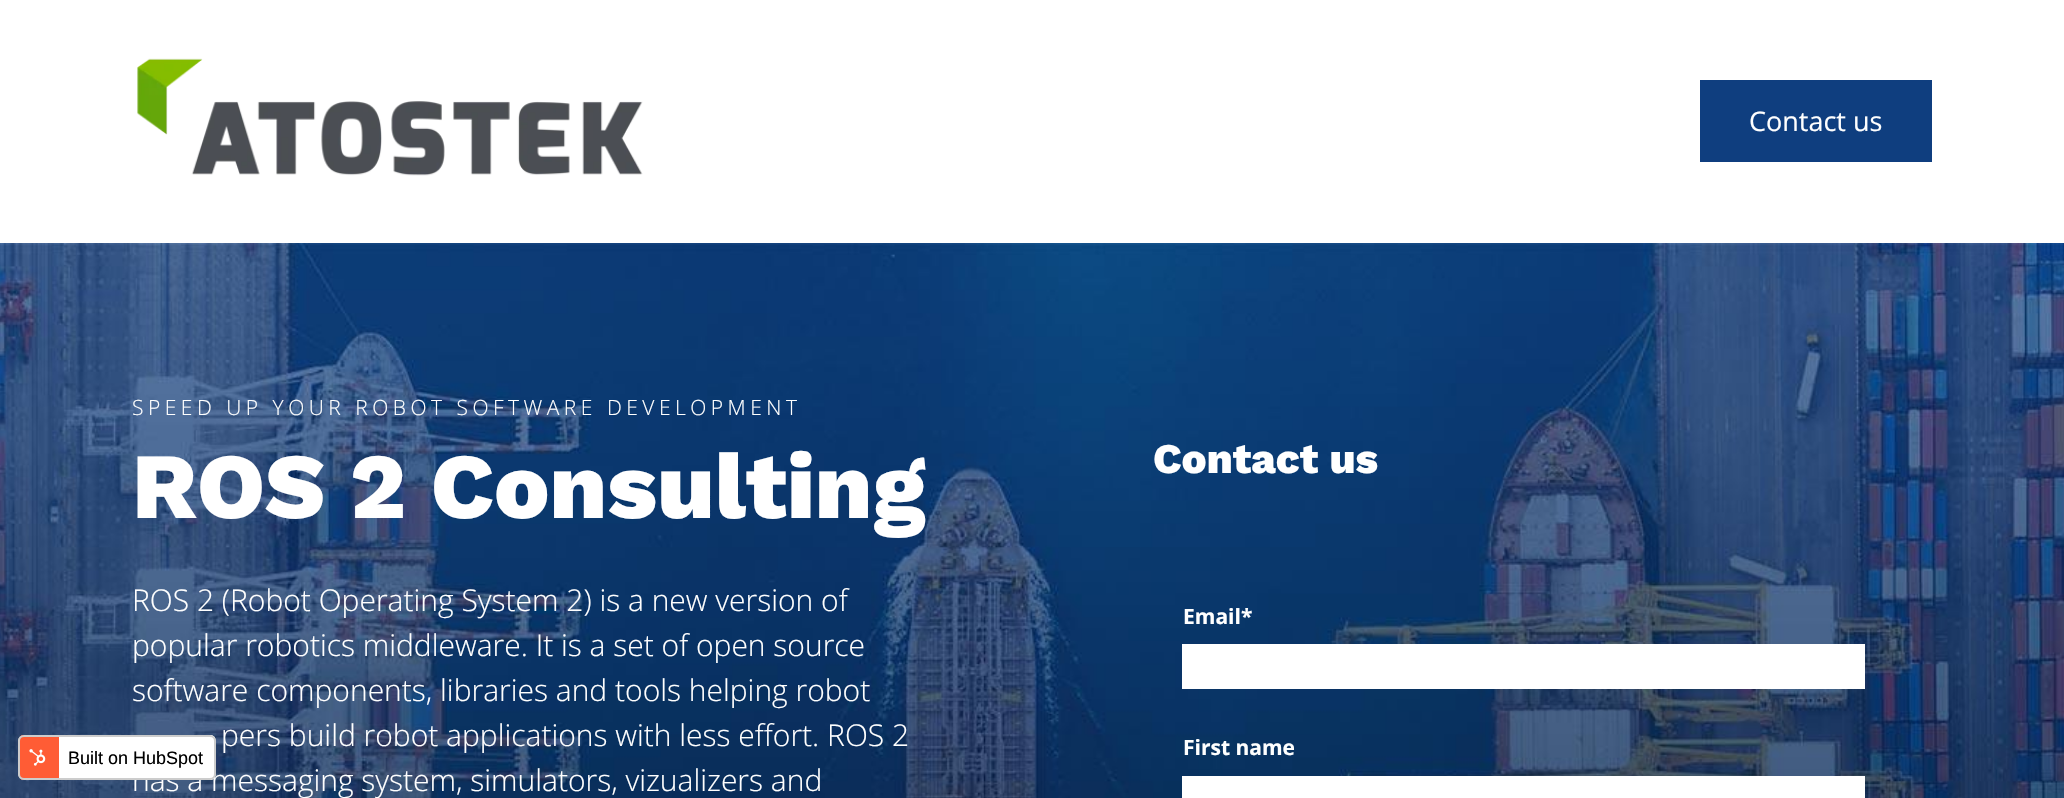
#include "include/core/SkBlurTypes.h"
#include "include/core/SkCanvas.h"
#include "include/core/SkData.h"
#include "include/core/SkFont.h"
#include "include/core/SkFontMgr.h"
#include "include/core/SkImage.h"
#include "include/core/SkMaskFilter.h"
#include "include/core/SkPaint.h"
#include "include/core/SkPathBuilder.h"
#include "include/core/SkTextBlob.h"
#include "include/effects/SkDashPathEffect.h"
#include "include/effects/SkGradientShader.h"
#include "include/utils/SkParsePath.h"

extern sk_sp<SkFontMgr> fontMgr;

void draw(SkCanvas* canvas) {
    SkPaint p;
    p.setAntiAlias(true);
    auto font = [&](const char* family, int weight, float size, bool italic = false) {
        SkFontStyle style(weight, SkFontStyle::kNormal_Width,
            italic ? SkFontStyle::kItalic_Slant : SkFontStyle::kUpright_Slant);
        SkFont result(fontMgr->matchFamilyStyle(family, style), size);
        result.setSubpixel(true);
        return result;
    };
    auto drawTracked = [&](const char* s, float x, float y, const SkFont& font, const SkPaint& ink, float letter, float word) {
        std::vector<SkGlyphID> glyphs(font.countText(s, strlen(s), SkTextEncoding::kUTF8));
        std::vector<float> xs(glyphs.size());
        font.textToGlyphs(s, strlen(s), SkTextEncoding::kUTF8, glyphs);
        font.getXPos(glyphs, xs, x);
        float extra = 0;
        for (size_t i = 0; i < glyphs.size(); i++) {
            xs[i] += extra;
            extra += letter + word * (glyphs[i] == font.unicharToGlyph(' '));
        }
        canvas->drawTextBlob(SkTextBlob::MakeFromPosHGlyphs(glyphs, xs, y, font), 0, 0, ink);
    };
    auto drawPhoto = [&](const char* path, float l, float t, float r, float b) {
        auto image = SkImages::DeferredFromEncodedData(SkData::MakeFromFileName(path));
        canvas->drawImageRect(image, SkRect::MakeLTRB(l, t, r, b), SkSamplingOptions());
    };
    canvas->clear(0xFFFFFFFF);
    drawPhoto("media/1.png", 137, 58, 643, 176);
    p.setColor(0xFF0F3E7F);
    canvas->drawRect(SkRect::MakeLTRB(1700, 80, 1932, 162), p);
    auto font1 = font("Open Sans", 400, 27);
    p.setColor(0xFFFFFFFF);
    canvas->drawString("Contact us", 1749, 131, font1, p);
    drawPhoto("media/2.png", 0, 243, 2064, 798);
    auto font2 = font("Open Sans", 300, 21);
    drawTracked("SPEED UP YOUR ROBOT SOFTWARE DEVELOPMENT", 132, 415, font2, p, 4.5f, 0);
    auto font3 = font("Work Sans", 800, 93);
    canvas->drawString("ROS 2 Consulting", 132, 518, font3, p);
    auto font4 = font("Open Sans", 300, 30);
    {
        const struct { const char* s; float x, y; } items[] = {
            {"ROS 2 (Robot Operating System 2) is a new version of", 132, 611},
            {"popular robotics middleware. It is a set of open source", 132, 656},
            {"software components, libraries and tools helping robot", 132, 701},
            {"pers build robot applications with less effort. ROS 2", 221, 746},
            {"has a messaging system, simulators, vizualizers and", 132, 791},
        };
        for (auto [s, x, y] : items) {
            canvas->drawString(s, x, y, font4, p);
        }
    }
    auto font5 = font("Work Sans", 800, 42);
    canvas->drawString("Contact us", 1153, 473, font5, p);
    auto font6 = font("Open Sans", 700, 21);
    canvas->drawString("Email*", 1183, 624, font6, p);
    canvas->drawRect(SkRect::MakeLTRB(1182, 644, 1865, 689), p);
    canvas->drawString("First name", 1183, 755, font6, p);
    canvas->drawRect(SkRect::MakeLTRB(1182, 776, 1865, 798), p);
    canvas->save();
    canvas->clipPath(SkPathBuilder().moveTo(24, 735).lineTo(210, 735).cubicTo(213.5f, 735, 216, 737.5f, 216, 741).lineTo(216, 774).cubicTo(216, 777.5f, 213.5f, 780, 210, 780).lineTo(24, 780).cubicTo(20.5f, 780, 18, 777.5f, 18, 774).lineTo(18, 741).cubicTo(18, 737.5f, 20.5f, 735, 24, 735).close().detach(), true);
    p.setColor(0xFFFF5C35);
    canvas->drawRect(SkRect::MakeLTRB(20, 735, 59, 780), p);
    p.setColor(0xFFFFFFFF);
    canvas->drawRect(SkRect::MakeLTRB(59, 735, 215, 780), p);
    canvas->restore();
    p.setStyle(SkPaint::kStroke_Style);
    p.setStrokeWidth(2);
    p.setColor(0xFFCCCCCC);
    canvas->drawRoundRect(SkRect::MakeLTRB(19, 736, 215, 779), 5, 5, p);
    drawPhoto("media/3.png", 29, 749, 46, 766);
    auto font7 = font("Liberation Sans", 400, 18);
    p.setStyle(SkPaint::kFill_Style);
    p.setColor(0xFF000000);
    canvas->drawString("Built on HubSpot", 68, 764, font7, p);
}
